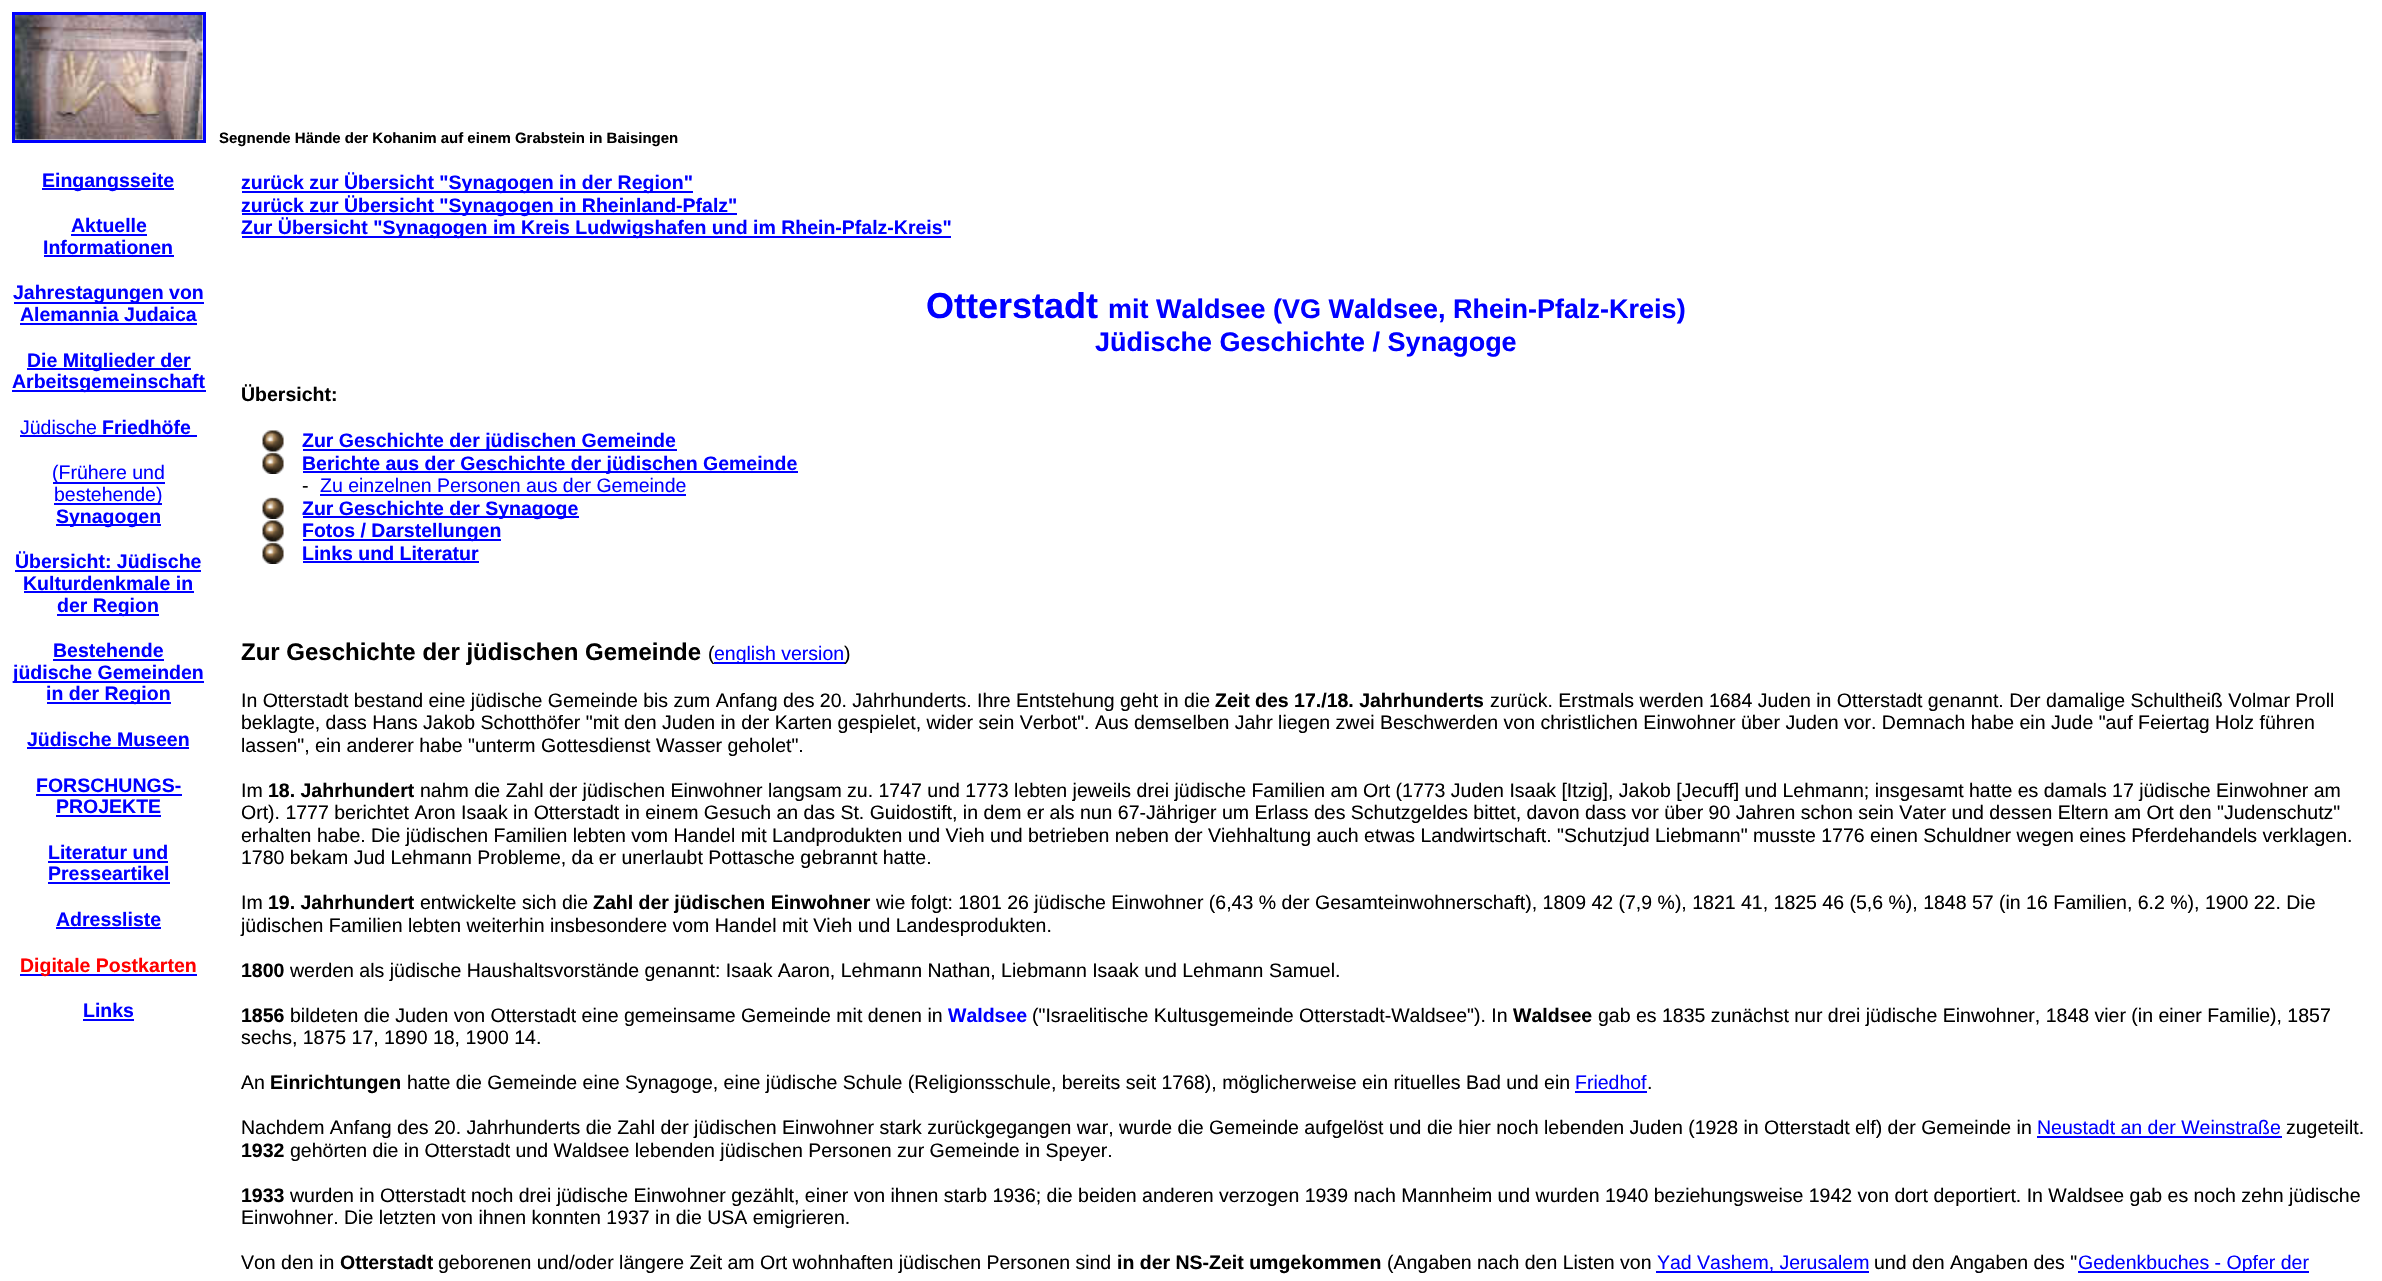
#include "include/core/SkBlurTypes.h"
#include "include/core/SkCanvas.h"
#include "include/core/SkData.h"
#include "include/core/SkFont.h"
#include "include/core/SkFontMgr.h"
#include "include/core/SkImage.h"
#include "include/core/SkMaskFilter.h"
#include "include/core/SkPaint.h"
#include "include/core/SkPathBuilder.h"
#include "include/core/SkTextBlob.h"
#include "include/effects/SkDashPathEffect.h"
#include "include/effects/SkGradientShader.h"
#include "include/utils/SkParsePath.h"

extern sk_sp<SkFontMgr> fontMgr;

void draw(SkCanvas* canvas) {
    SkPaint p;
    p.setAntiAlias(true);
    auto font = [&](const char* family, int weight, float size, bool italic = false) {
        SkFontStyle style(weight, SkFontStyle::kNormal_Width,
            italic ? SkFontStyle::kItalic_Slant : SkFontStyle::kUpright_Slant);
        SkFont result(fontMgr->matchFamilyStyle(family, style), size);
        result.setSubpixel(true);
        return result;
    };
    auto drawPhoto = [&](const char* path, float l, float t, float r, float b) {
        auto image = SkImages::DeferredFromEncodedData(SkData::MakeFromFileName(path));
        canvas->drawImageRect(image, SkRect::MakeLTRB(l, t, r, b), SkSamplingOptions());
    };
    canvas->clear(0xFFFFFFFF);
    p.setStyle(SkPaint::kStroke_Style);
    p.setStrokeWidth(3);
    p.setColor(0xFF0000FF);
    canvas->drawRect(SkRect::MakeLTRB(13.5f, 13.5f, 204.5f, 141.5f), p);
    drawPhoto("media/1.png", 15, 15, 203, 140);
    auto font1 = font("Liberation Sans", 700, 15);
    p.setStyle(SkPaint::kFill_Style);
    p.setColor(0xFF000000);
    canvas->drawString("Segnende Hände der Kohanim auf einem Grabstein in Baisingen", 219, 143, font1, p);
    p.setColor(0xFF0000FF);
    canvas->drawRect(SkRect::MakeLTRB(42, 188, 174, 190), p);
    auto font2 = font("Liberation Sans", 700, 19.5f);
    canvas->drawString("Eingangsseite", 42, 187, font2, p);
    canvas->drawString("Aktuelle", 71, 232, font2, p);
    canvas->drawRect(SkRect::MakeLTRB(71, 234, 147, 236), p);
    canvas->drawString("Informationen", 43, 254, font2, p);
    canvas->drawRect(SkRect::MakeLTRB(44, 255, 174, 257), p);
    canvas->drawRect(SkRect::MakeLTRB(14, 302, 204, 304), p);
    canvas->drawString("Jahrestagungen von", 13, 299, font2, p);
    canvas->drawString("Alemannia Judaica", 20, 321, font2, p);
    canvas->drawRect(SkRect::MakeLTRB(20, 323, 197, 325), p);
    canvas->drawRect(SkRect::MakeLTRB(27, 368, 191, 370), p);
    canvas->drawString("Die Mitglieder der", 27, 367, font2, p);
    canvas->drawRect(SkRect::MakeLTRB(12, 390, 206, 392), p);
    canvas->drawString("Arbeitsgemeinschaft", 12, 388, font2, p);
    auto font3 = font("Liberation Sans", 400, 19.5f);
    canvas->drawString("Jüdische", 20, 434, font3, p);
    canvas->drawRect(SkRect::MakeLTRB(20, 435, 197, 437), p);
    canvas->drawString("Friedhöfe", 102, 434, font2, p);
    canvas->drawRect(SkRect::MakeLTRB(53, 482, 165, 484), p);
    canvas->drawString("(Frühere und", 52, 479, font3, p);
    canvas->drawRect(SkRect::MakeLTRB(54, 503, 162, 505), p);
    canvas->drawString("bestehende)", 54, 501, font3, p);
    canvas->drawRect(SkRect::MakeLTRB(56, 524, 161, 526), p);
    canvas->drawString("Synagogen", 56, 523, font2, p);
    canvas->drawString("Übersicht: Jüdische", 15, 568, font2, p);
    canvas->drawRect(SkRect::MakeLTRB(15, 570, 201, 572), p);
    canvas->drawString("Kulturdenkmale in", 23, 590, font2, p);
    canvas->drawRect(SkRect::MakeLTRB(24, 591, 194, 593), p);
    canvas->drawRect(SkRect::MakeLTRB(57, 614, 159, 616), p);
    canvas->drawString("der Region", 57, 612, font2, p);
    canvas->drawString("Bestehende", 53, 657, font2, p);
    canvas->drawRect(SkRect::MakeLTRB(53, 659, 164, 661), p);
    canvas->drawRect(SkRect::MakeLTRB(14, 681, 204, 683), p);
    canvas->drawString("jüdische Gemeinden", 13, 679, font2, p);
    canvas->drawRect(SkRect::MakeLTRB(47, 702, 171, 704), p);
    canvas->drawString("in der Region", 46, 700, font2, p);
    canvas->drawString("Jüdische Museen", 27, 746, font2, p);
    canvas->drawRect(SkRect::MakeLTRB(27, 747, 189, 749), p);
    canvas->drawString("FORSCHUNGS-", 36, 792, font2, p);
    canvas->drawRect(SkRect::MakeLTRB(36, 794, 182, 796), p);
    canvas->drawString("PROJEKTE", 56, 813, font2, p);
    canvas->drawRect(SkRect::MakeLTRB(56, 815, 161, 817), p);
    canvas->drawString("Literatur und", 48, 859, font2, p);
    canvas->drawRect(SkRect::MakeLTRB(48, 861, 168, 863), p);
    canvas->drawString("Presseartikel", 48, 880, font2, p);
    canvas->drawRect(SkRect::MakeLTRB(48, 882, 170, 884), p);
    canvas->drawString("Adressliste", 56, 926, font2, p);
    canvas->drawRect(SkRect::MakeLTRB(56, 927, 161, 929), p);
    canvas->drawRect(SkRect::MakeLTRB(20, 974, 197, 976), p);
    p.setColor(0xFFFF0000);
    canvas->drawString("Digitale Postkarten", 20, 972, font2, p);
    p.setColor(0xFF0000FF);
    canvas->drawString("Links", 83, 1017, font2, p);
    canvas->drawRect(SkRect::MakeLTRB(83, 1019, 134, 1021), p);
    canvas->drawRect(SkRect::MakeLTRB(242, 191, 693, 193), p);
    canvas->drawString("zurück zur Übersicht \"Synagogen in der Region\"", 241, 189, font2, p);
    canvas->drawRect(SkRect::MakeLTRB(242, 213, 737, 215), p);
    canvas->drawString("zurück zur Übersicht \"Synagogen in Rheinland-Pfalz\"", 241, 212, font2, p);
    canvas->drawRect(SkRect::MakeLTRB(242, 236, 951, 238), p);
    canvas->drawString("Zur Übersicht \"Synagogen im Kreis Ludwigshafen und im Rhein-Pfalz-Kreis\"", 241, 234, font2, p);
    auto font4 = font("Liberation Sans", 700, 36);
    canvas->drawString("Otterstadt", 926, 318, font4, p);
    auto font5 = font("Liberation Sans", 700, 27);
    canvas->drawString("mit Waldsee (VG Waldsee, Rhein-Pfalz-Kreis)", 1108, 318, font5, p);
    canvas->drawString("Jüdische Geschichte / Synagoge", 1095, 351, font5, p);
    p.setColor(0xFF000000);
    canvas->drawString("Übersicht:", 241, 401, font2, p);
    drawPhoto("media/2.png", 262, 430, 284, 452);
    p.setColor(0xFF0000FF);
    canvas->drawRect(SkRect::MakeLTRB(303, 449, 677, 451), p);
    canvas->drawString("Zur Geschichte der jüdischen Gemeinde", 302, 447, font2, p);
    drawPhoto("media/3.png", 262, 452, 284, 474);
    canvas->drawRect(SkRect::MakeLTRB(303, 471, 798, 473), p);
    canvas->drawString("Berichte aus der Geschichte der jüdischen Gemeinde", 302, 470, font2, p);
    p.setColor(0xFF000000);
    canvas->drawString("-", 302, 492, font3, p);
    p.setColor(0xFF0000FF);
    canvas->drawString("Zu einzelnen Personen aus der Gemeinde", 320, 492, font3, p);
    canvas->drawRect(SkRect::MakeLTRB(320, 494, 686, 496), p);
    drawPhoto("media/3.png", 262, 497, 284, 519);
    canvas->drawRect(SkRect::MakeLTRB(303, 516, 579, 518), p);
    canvas->drawString("Zur Geschichte der Synagoge", 302, 515, font2, p);
    drawPhoto("media/2.png", 262, 520, 284, 542);
    canvas->drawRect(SkRect::MakeLTRB(303, 539, 501, 541), p);
    canvas->drawString("Fotos / Darstellungen", 302, 537, font2, p);
    drawPhoto("media/3.png", 262, 542, 284, 564);
    canvas->drawString("Links und Literatur", 302, 560, font2, p);
    canvas->drawRect(SkRect::MakeLTRB(303, 561, 479, 563), p);
    auto font6 = font("Liberation Sans", 700, 24);
    p.setColor(0xFF000000);
    canvas->drawString("Zur Geschichte der jüdischen Gemeinde", 241, 660, font6, p);
    canvas->drawString("(", 708, 660, font3, p);
    p.setColor(0xFF0000FF);
    canvas->drawRect(SkRect::MakeLTRB(714, 662, 845, 664), p);
    canvas->drawString("english version", 714, 660, font3, p);
    p.setColor(0xFF000000);
    canvas->drawString(")", 844, 660, font3, p);
    canvas->drawString("In Otterstadt bestand eine jüdische Gemeinde bis zum Anfang des 20. Jahrhunderts. Ihre Entstehung geht in die", 241, 707, font3, p);
    canvas->drawString("Zeit des 17./18. Jahrhunderts", 1215, 707, font2, p);
    {
        const struct { const char* s; float x, y; } items[] = {
            {"zurück. Erstmals werden 1684 Juden in Otterstadt genannt. Der damalige Schultheiß Volmar Proll", 1490, 707},
            {"beklagte, dass Hans Jakob Schotthöfer \"mit den Juden in der Karten gespielet, wider sein Verbot\". Aus demselben Jahr liegen zwei Beschwerden von christlichen Einwohner über Juden vor. Demnach habe ein Jude \"auf Feiertag Holz führen", 241, 729},
            {"lassen\", ein anderer habe \"unterm Gottesdienst Wasser geholet\".", 241, 752},
            {"Im", 241, 797},
        };
        for (auto [s, x, y] : items) {
            canvas->drawString(s, x, y, font3, p);
        }
    }
    canvas->drawString("18. Jahrhundert", 268, 797, font2, p);
    {
        const struct { const char* s; float x, y; } items[] = {
            {"nahm die Zahl der jüdischen Einwohner langsam zu. 1747 und 1773 lebten jeweils drei jüdische Familien am Ort (1773 Juden Isaak [Itzig], Jakob [Jecuff] und Lehmann; insgesamt hatte es damals 17 jüdische Einwohner am", 420, 797},
            {"Ort). 1777 berichtet Aron Isaak in Otterstadt in einem Gesuch an das St. Guidostift, in dem er als nun 67-Jähriger um Erlass des Schutzgeldes bittet, davon dass vor über 90 Jahren schon sein Vater und dessen Eltern am Ort den \"Judenschutz\"", 241, 819},
            {"erhalten habe. Die jüdischen Familien lebten vom Handel mit Landprodukten und Vieh und betrieben neben der Viehhaltung auch etwas Landwirtschaft. \"Schutzjud Liebmann\" musste 1776 einen Schuldner wegen eines Pferdehandels verklagen.", 241, 842},
            {"1780 bekam Jud Lehmann Probleme, da er unerlaubt Pottasche gebrannt hatte.", 241, 864},
            {"Im", 241, 909},
        };
        for (auto [s, x, y] : items) {
            canvas->drawString(s, x, y, font3, p);
        }
    }
    canvas->drawString("19. Jahrhundert", 268, 909, font2, p);
    canvas->drawString("entwickelte sich die", 420, 909, font3, p);
    canvas->drawString("Zahl der jüdischen Einwohner", 593, 909, font2, p);
    canvas->drawString("wie folgt: 1801 26 jüdische Einwohner (6,43 % der Gesamteinwohnerschaft), 1809 42 (7,9 %), 1821 41, 1825 46 (5,6 %), 1848 57 (in 16 Familien, 6.2 %), 1900 22. Die", 876, 909, font3, p);
    canvas->drawString("jüdischen Familien lebten weiterhin insbesondere vom Handel mit Vieh und Landesprodukten.", 241, 932, font3, p);
    canvas->drawString("1800", 241, 977, font2, p);
    canvas->drawString("werden als jüdische Haushaltsvorstände genannt: Isaak Aaron, Lehmann Nathan, Liebmann Isaak und Lehmann Samuel.", 290, 977, font3, p);
    canvas->drawString("1856", 241, 1022, font2, p);
    canvas->drawString("bildeten die Juden von Otterstadt eine gemeinsame Gemeinde mit denen in", 290, 1022, font3, p);
    p.setColor(0xFF0000FF);
    canvas->drawString("Waldsee", 948, 1022, font2, p);
    p.setColor(0xFF000000);
    canvas->drawString("(\"Israelitische Kultusgemeinde Otterstadt-Waldsee\"). In", 1032, 1022, font3, p);
    canvas->drawString("Waldsee", 1513, 1022, font2, p);
    {
        const struct { const char* s; float x, y; } items[] = {
            {"gab es 1835 zunächst nur drei jüdische Einwohner, 1848 vier (in einer Familie), 1857", 1598, 1022},
            {"sechs, 1875 17, 1890 18, 1900 14.", 241, 1044},
            {"An", 241, 1089},
        };
        for (auto [s, x, y] : items) {
            canvas->drawString(s, x, y, font3, p);
        }
    }
    canvas->drawString("Einrichtungen", 270, 1089, font2, p);
    canvas->drawString("hatte die Gemeinde eine Synagoge, eine jüdische Schule (Religionsschule, bereits seit 1768), möglicherweise ein rituelles Bad und ein", 407, 1089, font3, p);
    p.setColor(0xFF0000FF);
    canvas->drawString("Friedhof", 1575, 1089, font3, p);
    p.setColor(0xFF000000);
    canvas->drawString(".", 1647, 1089, font3, p);
    p.setColor(0xFF0000FF);
    canvas->drawRect(SkRect::MakeLTRB(1575, 1091, 1647, 1093), p);
    p.setColor(0xFF000000);
    canvas->drawString("Nachdem Anfang des 20. Jahrhunderts die Zahl der jüdischen Einwohner stark zurückgegangen war, wurde die Gemeinde aufgelöst und die hier noch lebenden Juden (1928 in Otterstadt elf) der Gemeinde in", 241, 1134, font3, p);
    p.setColor(0xFF0000FF);
    canvas->drawString("Neustadt an der Weinstraße", 2037, 1134, font3, p);
    canvas->drawRect(SkRect::MakeLTRB(2037, 1136, 2282, 1138), p);
    p.setColor(0xFF000000);
    canvas->drawString("zugeteilt.", 2286, 1134, font3, p);
    canvas->drawString("1932", 241, 1157, font2, p);
    canvas->drawString("gehörten die in Otterstadt und Waldsee lebenden jüdischen Personen zur Gemeinde in Speyer.", 290, 1157, font3, p);
    canvas->drawString("1933", 241, 1202, font2, p);
    {
        const struct { const char* s; float x, y; } items[] = {
            {"wurden in Otterstadt noch drei jüdische Einwohner gezählt, einer von ihnen starb 1936; die beiden anderen verzogen 1939 nach Mannheim und wurden 1940 beziehungsweise 1942 von dort deportiert. In Waldsee gab es noch zehn jüdische", 290, 1202},
            {"Einwohner. Die letzten von ihnen konnten 1937 in die USA emigrieren.", 241, 1224},
            {"Von den in", 241, 1269},
        };
        for (auto [s, x, y] : items) {
            canvas->drawString(s, x, y, font3, p);
        }
    }
    canvas->drawString("Otterstadt", 340, 1269, font2, p);
    canvas->drawString("geborenen und/oder längere Zeit am Ort wohnhaften jüdischen Personen sind", 438, 1269, font3, p);
    canvas->drawString("in der NS-Zeit umgekommen", 1117, 1269, font2, p);
    canvas->drawString("(Angaben nach den Listen von", 1387, 1269, font3, p);
    p.setColor(0xFF0000FF);
    canvas->drawRect(SkRect::MakeLTRB(1656, 1271, 1869, 1273), p);
    canvas->drawString("Yad Vashem, Jerusalem", 1657, 1269, font3, p);
    p.setColor(0xFF000000);
    canvas->drawString("und den Angaben des \"", 1874, 1269, font3, p);
    p.setColor(0xFF0000FF);
    canvas->drawRect(SkRect::MakeLTRB(2078, 1271, 2309, 1273), p);
    canvas->drawString("Gedenkbuches - Opfer der", 2078, 1269, font3, p);
}
